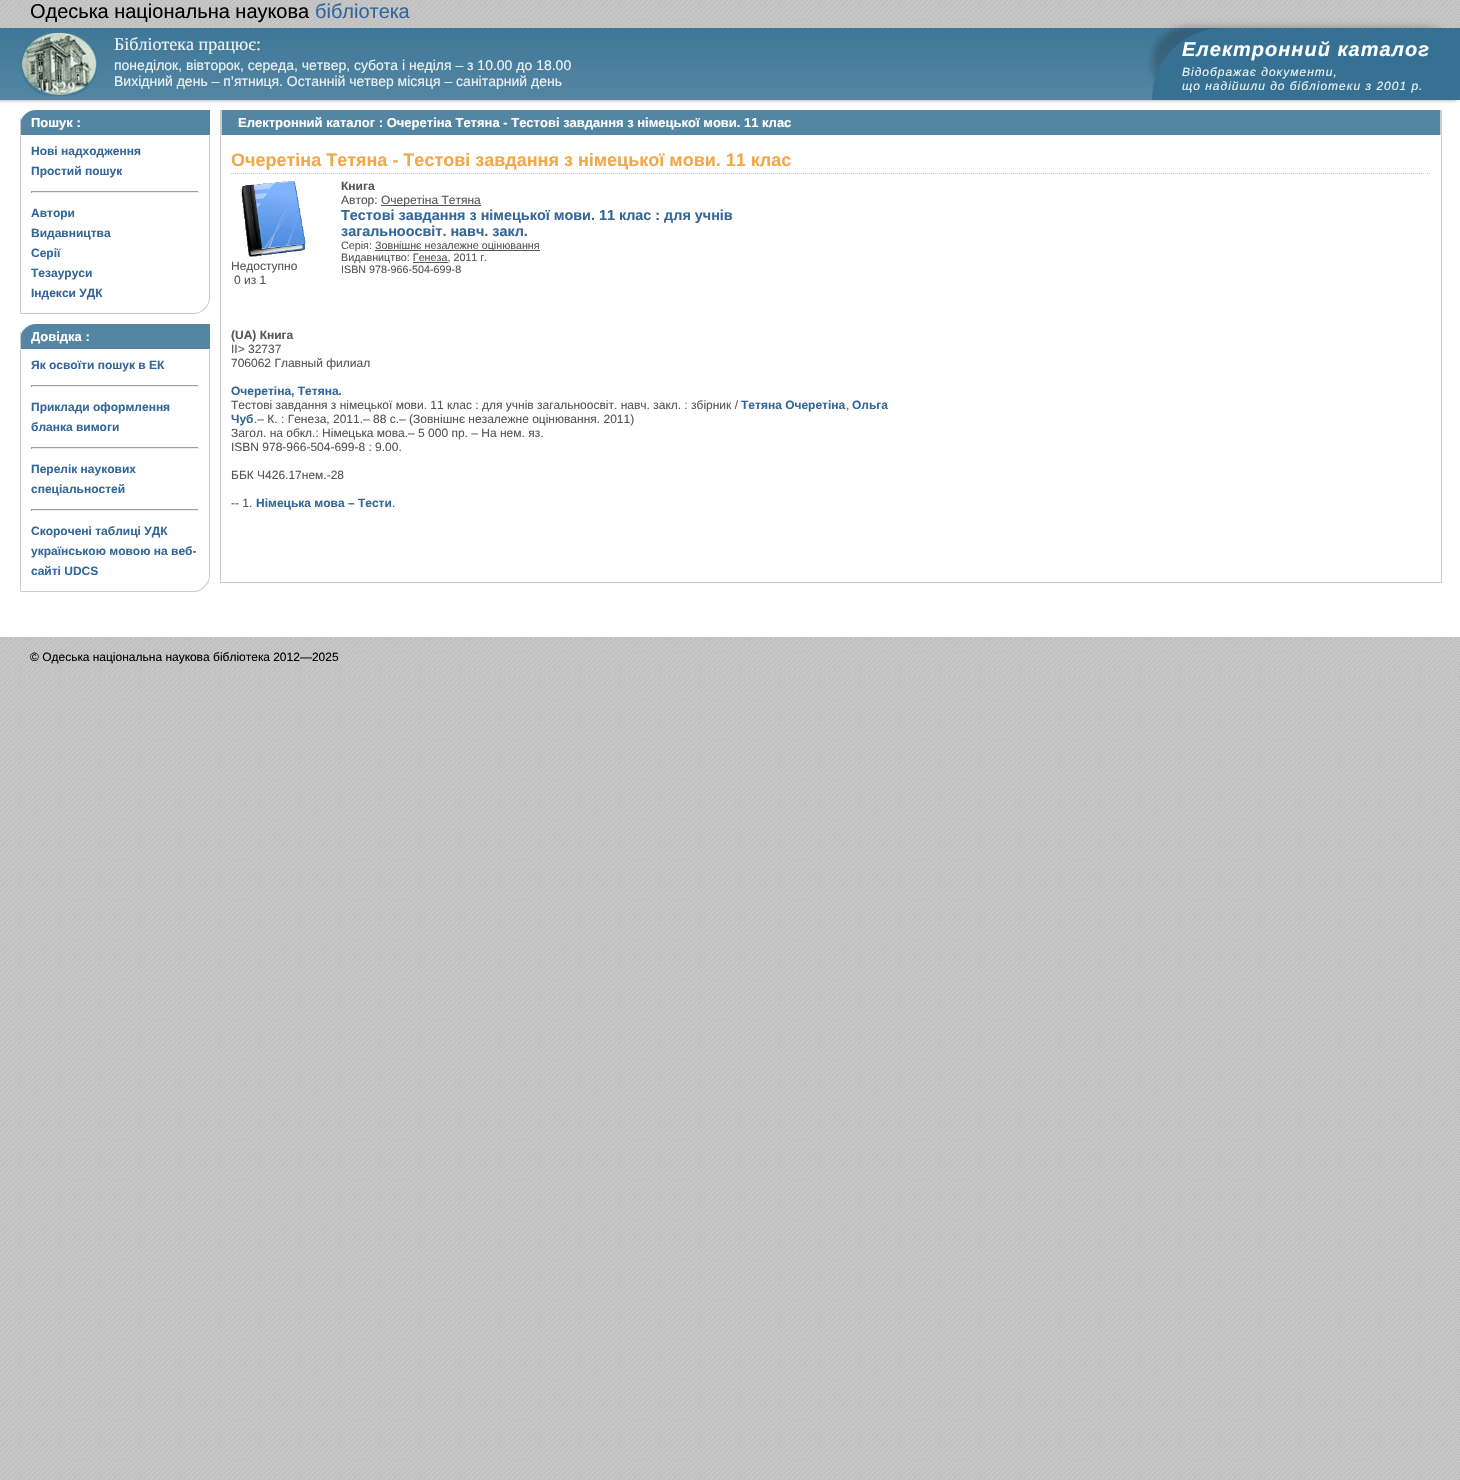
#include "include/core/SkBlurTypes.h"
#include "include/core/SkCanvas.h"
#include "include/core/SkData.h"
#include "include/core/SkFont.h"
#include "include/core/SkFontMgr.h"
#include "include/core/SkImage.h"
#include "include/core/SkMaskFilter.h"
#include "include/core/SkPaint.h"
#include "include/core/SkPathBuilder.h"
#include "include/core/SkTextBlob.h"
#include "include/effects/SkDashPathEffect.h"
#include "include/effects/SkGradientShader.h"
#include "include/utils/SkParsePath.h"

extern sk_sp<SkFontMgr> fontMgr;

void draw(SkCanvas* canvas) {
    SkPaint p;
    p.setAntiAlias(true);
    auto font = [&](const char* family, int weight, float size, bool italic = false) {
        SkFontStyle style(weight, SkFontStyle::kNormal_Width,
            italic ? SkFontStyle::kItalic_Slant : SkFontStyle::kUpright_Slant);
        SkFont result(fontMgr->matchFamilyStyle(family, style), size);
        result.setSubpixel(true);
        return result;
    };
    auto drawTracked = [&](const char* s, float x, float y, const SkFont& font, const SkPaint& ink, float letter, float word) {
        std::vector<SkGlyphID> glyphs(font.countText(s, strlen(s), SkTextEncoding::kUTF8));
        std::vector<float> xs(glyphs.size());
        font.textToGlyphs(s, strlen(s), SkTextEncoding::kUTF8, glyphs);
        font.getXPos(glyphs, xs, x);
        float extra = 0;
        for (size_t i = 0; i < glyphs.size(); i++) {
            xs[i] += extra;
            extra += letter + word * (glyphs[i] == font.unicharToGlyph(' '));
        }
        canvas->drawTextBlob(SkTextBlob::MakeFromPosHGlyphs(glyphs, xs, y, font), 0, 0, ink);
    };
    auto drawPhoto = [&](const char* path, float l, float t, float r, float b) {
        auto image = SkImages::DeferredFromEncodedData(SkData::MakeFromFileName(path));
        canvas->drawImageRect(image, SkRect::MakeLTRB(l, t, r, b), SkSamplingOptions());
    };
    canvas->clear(0xFFFFFFFF);
    drawPhoto("media/1.png", 0, 677, 1460, 1480);
    p.setColor(0xFF999999);
    p.setMaskFilter(SkMaskFilter::MakeBlur(kNormal_SkBlurStyle, 2));
    canvas->drawRect(SkRect::MakeLTRB(-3, 0, 1457, 100), p);
    p.setMaskFilter(nullptr);
    {
        const SkColor colors[] = {0xFF367193, 0xFF5486A3};
        const float stops[] = {0, 1};
        const SkPoint ends[] = {{730, 0}, {730, 100}};
        p.setShader(SkGradientShader::MakeLinear(ends, colors, stops, 2, SkTileMode::kClamp));
        p.setAlpha(255);
    }
    canvas->drawRect(SkRect::MakeLTRB(0, 28, 1223, 100), p);
    drawPhoto("media/2.png", 0, 0, 1460, 28);
    auto font1 = font("Liberation Sans", 400, 20);
    p.setShader(nullptr);
    p.setColor(0xFF000000);
    canvas->drawString("Одеська національна наукова", 30, 18, font1, p);
    p.setColor(0xFF336699);
    canvas->drawString("бібліотека", 315, 18, font1, p);
    drawPhoto("media/3.png", 20, 32, 98, 96);
    auto font2 = font("Liberation Serif", 400, 18);
    p.setColor(0xFFEDF3F3);
    canvas->drawString("Бібліотека працює:", 114, 50, font2, p);
    auto font3 = font("Liberation Sans", 400, 14);
    canvas->drawString("понеділок, вівторок, середа, четвер, субота і неділя – з 10.00 до 18.00", 114, 70, font3, p);
    canvas->drawString("Вихідний день – п’ятниця. Останній четвер місяця – санітарний день", 114, 86, font3, p);
    canvas->save();
    canvas->clipRect(SkRect::MakeLTRB(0, 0, 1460, 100));
    p.setColor(0x33000000);
    p.setMaskFilter(SkMaskFilter::MakeBlur(kNormal_SkBlurStyle, 3));
    canvas->drawRoundRect(SkRect::MakeLTRB(1152, 26, 1460, 98), 72, 72, p);
    p.setMaskFilter(nullptr);
    canvas->restore();
    p.setColor(0xFF367193);
    canvas->drawPath(SkPathBuilder().moveTo(1224, 28).lineTo(1460, 28).lineTo(1460, 100).lineTo(1152, 100).cubicTo(1152, 60, 1184, 28, 1224, 28).close().detach(), p);
    auto font4 = font("Liberation Sans", 700, 20, true);
    p.setColor(0xFFFFFFFF);
    drawTracked("Електронний каталог", 1182, 56, font4, p, 1, 0);
    auto font5 = font("Liberation Sans", 400, 12, true);
    p.setColor(0xFFEDF3F3);
    drawTracked("Відображає документи,", 1182, 76, font5, p, 1, 0);
    drawTracked("що надійшли до бібліотеки з 2001 р.", 1182, 90, font5, p, 1, 0);
    p.setColor(0xFF5486A3);
    canvas->drawPath(SkPathBuilder().moveTo(36, 110).lineTo(210, 110).lineTo(210, 135).lineTo(20, 135).lineTo(20, 126).cubicTo(20, 117, 27, 110, 36, 110).close().detach(), p);
    p.setColor(0xFFCCCCCC);
    canvas->drawRect(SkRect::MakeLTRB(20, 118, 21, 135), p);
    auto font6 = font("Liberation Sans", 700, 13);
    p.setColor(0xFFFFFFFF);
    canvas->drawString("Пошук :", 31, 127, font6, p);
    p.setColor(0xFFCCCCCC);
    canvas->drawPath(SkPathBuilder().moveTo(210, 135).lineTo(209, 136).lineTo(209, 298).cubicTo(209, 302, 207, 306, 204, 308).lineTo(205, 309).cubicTo(208, 306, 210, 302, 210, 298).close().detach(), p);
    canvas->drawPath(SkPathBuilder().moveTo(194, 314).cubicTo(198, 314, 202, 312, 205, 309).lineTo(204, 308).cubicTo(202, 311, 198, 313, 194, 313).lineTo(21, 313).lineTo(20, 314).close().detach(), p);
    canvas->drawPath(SkPathBuilder().moveTo(20, 135).lineTo(20, 314).lineTo(21, 313).lineTo(21, 136).close().detach(), p);
    auto font7 = font("Liberation Sans", 700, 12);
    p.setColor(0xFF336699);
    canvas->drawString("Нові надходження", 31, 155, font7, p);
    canvas->drawString("Простий пошук", 31, 175, font7, p);
    {
        const struct { float l, t, r, b; SkColor color; } items[] = {
            {31, 191, 199, 192, 0xFF9F9F9F},
            {198, 191, 199, 193, 0xFFEEEEEE},
            {31, 192, 199, 193, 0xFFEEEEEE},
            {31, 191, 32, 193, 0xFF9F9F9F},
        };
        for (auto [l, t, r, b, color] : items) {
            p.setColor(color);
            canvas->drawRect(SkRect::MakeLTRB(l, t, r, b), p);
        }
    }
    p.setColor(0xFF336699);
    {
        const struct { const char* s; float x, y; } items[] = {
            {"Автори", 31, 217},
            {"Видавництва", 31, 237},
            {"Серії", 31, 257},
            {"Тезауруси", 31, 277},
            {"Індекси УДК", 31, 297},
        };
        for (auto [s, x, y] : items) {
            canvas->drawString(s, x, y, font7, p);
        }
    }
    p.setColor(0xFF5486A3);
    canvas->drawPath(SkPathBuilder().moveTo(36, 324).lineTo(210, 324).lineTo(210, 349).lineTo(20, 349).lineTo(20, 340).cubicTo(20, 331, 27, 324, 36, 324).close().detach(), p);
    p.setColor(0xFFCCCCCC);
    canvas->drawRect(SkRect::MakeLTRB(20, 332, 21, 349), p);
    p.setColor(0xFFFFFFFF);
    canvas->drawString("Довідка :", 31, 341, font6, p);
    p.setColor(0xFFCCCCCC);
    canvas->drawPath(SkPathBuilder().moveTo(210, 349).lineTo(209, 350).lineTo(209, 576).cubicTo(209, 580, 207, 584, 204, 586).lineTo(205, 587).cubicTo(208, 584, 210, 580, 210, 576).close().detach(), p);
    canvas->drawPath(SkPathBuilder().moveTo(194, 592).cubicTo(198, 592, 202, 590, 205, 587).lineTo(204, 586).cubicTo(202, 589, 198, 591, 194, 591).lineTo(21, 591).lineTo(20, 592).close().detach(), p);
    canvas->drawPath(SkPathBuilder().moveTo(21, 350).lineTo(20, 349).lineTo(20, 592).lineTo(21, 591).close().detach(), p);
    p.setColor(0xFF336699);
    canvas->drawString("Як освоїти пошук в ЕК", 31, 369, font7, p);
    {
        const struct { float l, t, r, b; SkColor color; } items[] = {
            {31, 385, 199, 386, 0xFF9F9F9F},
            {198, 385, 199, 387, 0xFFEEEEEE},
            {31, 386, 199, 387, 0xFFEEEEEE},
            {31, 385, 32, 387, 0xFF9F9F9F},
        };
        for (auto [l, t, r, b, color] : items) {
            p.setColor(color);
            canvas->drawRect(SkRect::MakeLTRB(l, t, r, b), p);
        }
    }
    p.setColor(0xFF336699);
    canvas->drawString("Приклади оформлення", 31, 411, font7, p);
    canvas->drawString("бланка вимоги", 31, 431, font7, p);
    {
        const struct { float l, t, r, b; SkColor color; } items[] = {
            {31, 447, 199, 448, 0xFF9F9F9F},
            {198, 447, 199, 449, 0xFFEEEEEE},
            {31, 448, 199, 449, 0xFFEEEEEE},
            {31, 447, 32, 449, 0xFF9F9F9F},
        };
        for (auto [l, t, r, b, color] : items) {
            p.setColor(color);
            canvas->drawRect(SkRect::MakeLTRB(l, t, r, b), p);
        }
    }
    p.setColor(0xFF336699);
    canvas->drawString("Перелік наукових", 31, 473, font7, p);
    canvas->drawString("спеціальностей", 31, 493, font7, p);
    {
        const struct { float l, t, r, b; SkColor color; } items[] = {
            {31, 509, 199, 510, 0xFF9F9F9F},
            {198, 509, 199, 511, 0xFFEEEEEE},
            {31, 510, 199, 511, 0xFFEEEEEE},
            {31, 509, 32, 511, 0xFF9F9F9F},
        };
        for (auto [l, t, r, b, color] : items) {
            p.setColor(color);
            canvas->drawRect(SkRect::MakeLTRB(l, t, r, b), p);
        }
    }
    p.setColor(0xFF336699);
    {
        const struct { const char* s; float x, y; } items[] = {
            {"Скорочені таблиці УДК", 31, 535},
            {"українською мовою на веб-", 31, 555},
            {"сайті UDCS", 31, 575},
        };
        for (auto [s, x, y] : items) {
            canvas->drawString(s, x, y, font7, p);
        }
    }
    {
        const struct { float l, t, r, b; SkColor color; } items[] = {
            {1441, 110, 1442, 583, 0xFFCCCCCC},
            {220, 582, 1442, 583, 0xFFCCCCCC},
            {220, 110, 221, 583, 0xFFCCCCCC},
            {222, 110, 1440, 135, 0xFF5486A3},
            {1440, 110, 1441, 135, 0xFFCCCCCC},
            {221, 110, 222, 135, 0xFFCCCCCC},
        };
        for (auto [l, t, r, b, color] : items) {
            p.setColor(color);
            canvas->drawRect(SkRect::MakeLTRB(l, t, r, b), p);
        }
    }
    p.setColor(0xFFFFFFFF);
    canvas->drawString("Електронний каталог : Очеретіна Тетяна - Тестові завдання з німецької мови. 11 клас", 238, 127, font6, p);
    p.setStyle(SkPaint::kStroke_Style);
    p.setStrokeWidth(1);
    p.setColor(0xFFCCCCCC);
    p.setPathEffect(SkDashPathEffect::Make({{1, 1}}, 0));
    canvas->drawPath(SkPathBuilder().moveTo(231, 173.5f).lineTo(1431, 173.5f).detach(), p);
    p.setPathEffect(nullptr);
    auto font8 = font("Liberation Sans", 700, 18);
    p.setStyle(SkPaint::kFill_Style);
    p.setColor(0xFFF0A848);
    canvas->drawString("Очеретіна Тетяна - Тестові завдання з німецької мови. 11 клас", 231, 166, font8, p);
    drawPhoto("media/4.png", 241, 181, 306, 257);
    auto font9 = font("Liberation Sans", 400, 12);
    p.setColor(0xFF555555);
    canvas->drawString("Недоступно", 231, 270, font9, p);
    canvas->drawString("0 из 1", 234, 284, font9, p);
    canvas->drawString("Книга", 341, 190, font7, p);
    canvas->drawString("Автор:", 341, 204, font9, p);
    canvas->drawRect(SkRect::MakeLTRB(381, 205, 481, 206), p);
    canvas->drawString("Очеретіна Тетяна", 381, 204, font9, p);
    auto font10 = font("Liberation Sans", 700, 14.4f);
    p.setColor(0xFF336699);
    canvas->drawString("Тестові завдання з німецької мови. 11 клас : для учнів", 341, 220, font10, p);
    canvas->drawString("загальноосвіт. навч. закл.", 341, 236, font10, p);
    auto font11 = font("Liberation Sans", 400, 10.75f);
    p.setColor(0xFF555555);
    canvas->drawString("Серія:", 341, 249, font11, p);
    canvas->drawRect(SkRect::MakeLTRB(375, 250, 540, 251), p);
    canvas->drawString("Зовнішнє незалежне оцінювання", 375, 249, font11, p);
    canvas->drawString("Видавництво: Генеза, 2011 г.", 341, 261, font11, p);
    canvas->drawRect(SkRect::MakeLTRB(413, 262, 448, 263), p);
    canvas->drawString("ISBN 978-966-504-699-8", 341, 273, font11, p);
    canvas->drawString("(UA) Книга", 231, 339, font7, p);
    canvas->drawString("II> 32737", 231, 353, font9, p);
    canvas->drawString("706062 Главный филиал", 231, 367, font9, p);
    p.setColor(0xFF336699);
    canvas->drawString("Очеретіна, Тетяна.", 231, 395, font7, p);
    p.setColor(0xFF555555);
    canvas->drawString("Тестові завдання з німецької мови. 11 клас : для учнів загальноосвіт. навч. закл. : збірник /", 231, 409, font9, p);
    p.setColor(0xFF336699);
    canvas->drawString("Тетяна Очеретіна", 741, 409, font7, p);
    p.setColor(0xFF555555);
    canvas->drawString(",", 846, 409, font9, p);
    p.setColor(0xFF336699);
    canvas->drawString("Ольга", 852, 409, font7, p);
    canvas->drawString("Чуб", 231, 423, font7, p);
    p.setColor(0xFF555555);
    {
        const struct { const char* s; float x, y; } items[] = {
            {".– К. : Генеза, 2011.– 88 с.– (Зовнішнє незалежне оцінювання. 2011)", 254, 423},
            {"Загол. на обкл.: Німецька мова.– 5 000 пр. – На нем. яз.", 231, 437},
            {"ISBN 978-966-504-699-8 : 9.00.", 231, 451},
            {"ББК Ч426.17нем.-28", 231, 479},
            {"-- 1.", 231, 507},
        };
        for (auto [s, x, y] : items) {
            canvas->drawString(s, x, y, font9, p);
        }
    }
    p.setColor(0xFF336699);
    canvas->drawString("Німецька мова – Тести", 256, 507, font7, p);
    p.setColor(0xFF555555);
    canvas->drawString(".", 392, 507, font9, p);
    drawPhoto("media/5.png", 0, 637, 1460, 677);
    p.setColor(0xFF000000);
    canvas->drawString("© Одеська національна наукова бібліотека 2012—2025", 30, 661, font9, p);
}
